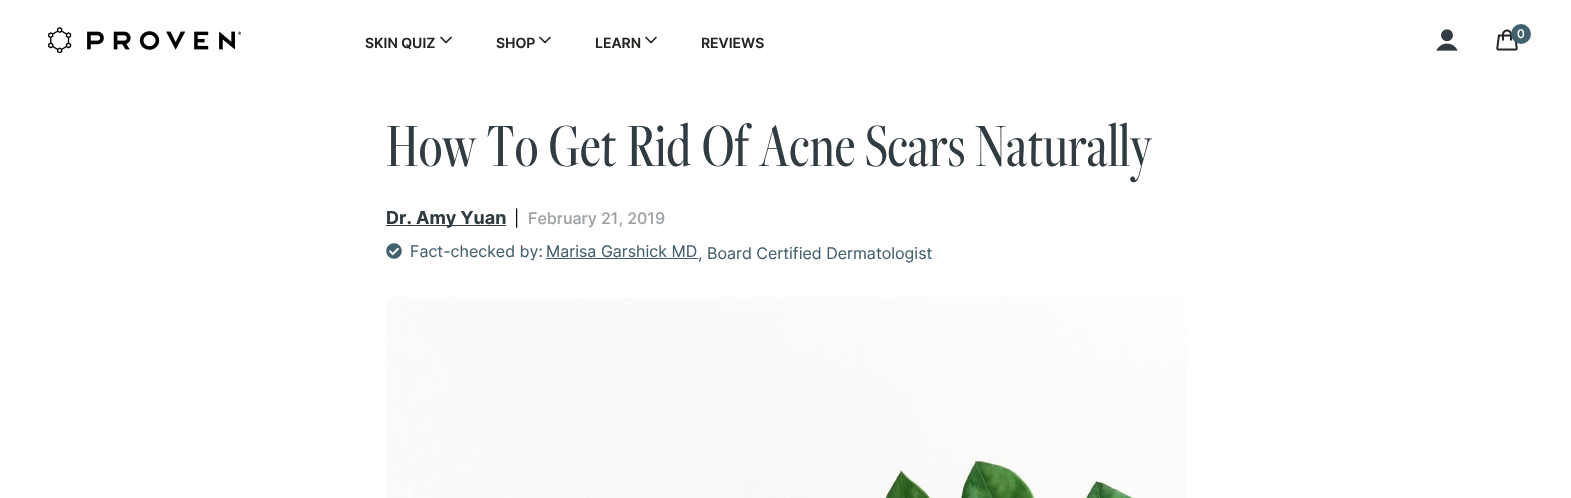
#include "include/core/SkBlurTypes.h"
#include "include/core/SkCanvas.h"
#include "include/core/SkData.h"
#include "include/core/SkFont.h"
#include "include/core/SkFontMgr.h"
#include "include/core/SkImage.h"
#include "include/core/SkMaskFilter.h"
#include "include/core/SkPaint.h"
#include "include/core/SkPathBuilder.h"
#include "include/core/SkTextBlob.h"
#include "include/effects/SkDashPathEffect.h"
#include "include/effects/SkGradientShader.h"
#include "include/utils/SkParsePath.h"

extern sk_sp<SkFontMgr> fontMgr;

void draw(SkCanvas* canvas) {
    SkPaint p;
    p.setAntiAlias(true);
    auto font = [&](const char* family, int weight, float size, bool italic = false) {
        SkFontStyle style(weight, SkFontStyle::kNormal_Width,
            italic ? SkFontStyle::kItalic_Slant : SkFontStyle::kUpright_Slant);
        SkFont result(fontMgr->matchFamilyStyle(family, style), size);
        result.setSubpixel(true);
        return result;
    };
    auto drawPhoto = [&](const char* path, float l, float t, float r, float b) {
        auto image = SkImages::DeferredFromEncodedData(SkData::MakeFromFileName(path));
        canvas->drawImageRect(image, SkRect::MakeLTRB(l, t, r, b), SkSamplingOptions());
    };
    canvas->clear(0xFFFFFFFF);
    drawPhoto("media/1.png", 48, 27, 241, 53);
    drawPhoto("media/2.png", 1436, 29, 1458, 51);
    drawPhoto("media/3.png", 1496, 29, 1518, 51);
    p.setColor(0xFF43606E);
    canvas->drawCircle(1521, 34, 10, p);
    auto font1 = font("Inter", 500, 12);
    p.setColor(0xFFFFFFFF);
    canvas->drawString("0", 1517, 38, font1, p);
    auto font2 = font("Inter", 600, 14);
    p.setColor(0xFF252522);
    canvas->drawString("SKIN QUIZ", 365, 48, font2, p);
    p.setStyle(SkPaint::kStroke_Style);
    p.setStrokeWidth(1.7f);
    p.setStrokeCap(SkPaint::kRound_Cap);
    p.setStrokeJoin(SkPaint::kRound_Join);
    canvas->drawPath(SkPathBuilder().moveTo(441, 37.5f).lineTo(446, 42.5f).lineTo(451, 37.5f).detach(), p);
    p.setStyle(SkPaint::kFill_Style);
    canvas->drawString("SHOP", 496, 48, font2, p);
    p.setStyle(SkPaint::kStroke_Style);
    canvas->drawPath(SkPathBuilder().moveTo(540, 37.5f).lineTo(545, 42.5f).lineTo(550, 37.5f).detach(), p);
    p.setStyle(SkPaint::kFill_Style);
    canvas->drawString("LEARN", 595, 48, font2, p);
    p.setStyle(SkPaint::kStroke_Style);
    canvas->drawPath(SkPathBuilder().moveTo(646, 37.5f).lineTo(651, 42.5f).lineTo(656, 37.5f).detach(), p);
    p.setStyle(SkPaint::kFill_Style);
    canvas->drawString("REVIEWS", 701, 48, font2, p);
    auto font3 = font("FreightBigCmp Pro", 400, 64);
    p.setColor(0xFF303C42);
    canvas->drawString("How To Get Rid Of Acne Scars Naturally", 386, 166, font3, p);
    canvas->drawRect(SkRect::MakeLTRB(386, 225, 506, 226), p);
    auto font4 = font("Inter", 700, 18);
    canvas->drawString("Dr. Amy Yuan", 386, 224, font4, p);
    auto font5 = font("Inter", 400, 16);
    p.setColor(0xFF000000);
    canvas->drawString("|", 514, 224, font5, p);
    auto font6 = font("Inter", 500, 16);
    p.setColor(0xFF9EA2A5);
    canvas->drawString("February 21, 2019", 528, 224, font6, p);
    drawPhoto("media/4.png", 386, 243, 402, 259);
    p.setColor(0xFF43606E);
    canvas->drawString("Fact-checked by:", 410, 257, font5, p);
    canvas->drawString("Marisa Garshick MD", 546, 257, font5, p);
    canvas->drawRect(SkRect::MakeLTRB(546, 258, 698, 259), p);
    canvas->drawString(", Board Certified Dermatologist", 698, 259, font5, p);
    drawPhoto("media/5.png", 386, 297, 1186, 498);
}
